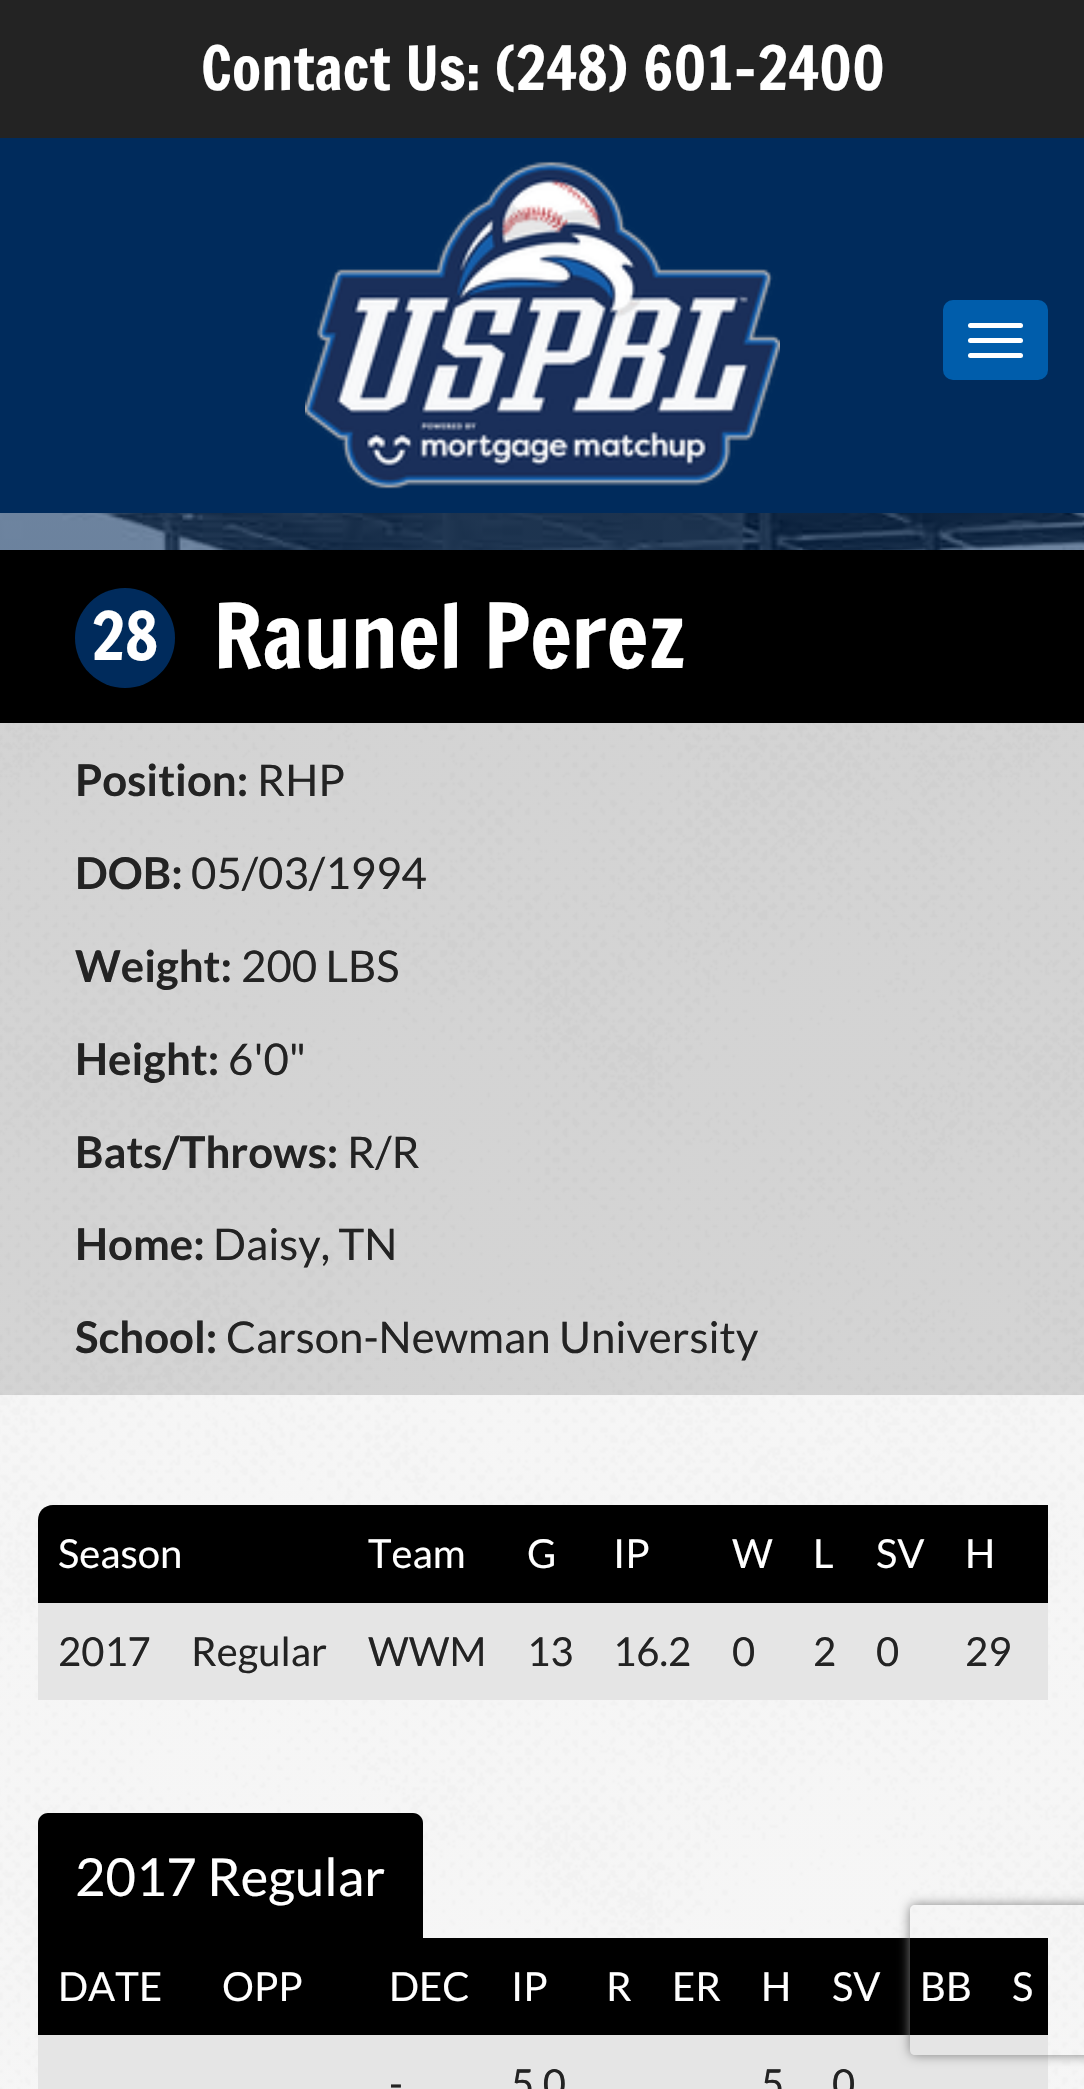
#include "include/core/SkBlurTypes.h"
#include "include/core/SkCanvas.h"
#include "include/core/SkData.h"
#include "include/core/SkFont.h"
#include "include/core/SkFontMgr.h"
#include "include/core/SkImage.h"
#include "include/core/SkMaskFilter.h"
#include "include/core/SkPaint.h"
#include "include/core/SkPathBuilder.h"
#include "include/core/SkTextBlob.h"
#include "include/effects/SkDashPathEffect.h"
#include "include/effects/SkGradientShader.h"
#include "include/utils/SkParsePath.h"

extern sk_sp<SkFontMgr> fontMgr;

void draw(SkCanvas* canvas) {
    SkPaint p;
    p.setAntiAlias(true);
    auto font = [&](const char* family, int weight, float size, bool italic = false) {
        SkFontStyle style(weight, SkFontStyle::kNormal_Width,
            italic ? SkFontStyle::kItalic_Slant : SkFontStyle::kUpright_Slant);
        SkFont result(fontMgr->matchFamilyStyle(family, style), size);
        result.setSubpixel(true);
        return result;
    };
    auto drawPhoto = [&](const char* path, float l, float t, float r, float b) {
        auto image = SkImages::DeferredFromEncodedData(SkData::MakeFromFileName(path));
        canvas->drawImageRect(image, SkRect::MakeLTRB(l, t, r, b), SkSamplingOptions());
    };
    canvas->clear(0xFFFFFFFF);
    drawPhoto("media/1.png", 0, 513, 1084, 550);
    p.setColor(0xFF232323);
    canvas->drawRect(SkRect::MakeLTRB(0, 0, 1084, 138), p);
    auto font1 = font("Francois One", 400, 59.5f);
    p.setColor(0xFFFFFFFF);
    canvas->drawString("Contact Us: (248) 601-2400", 201, 90, font1, p);
    p.setColor(0xFF002B5C);
    canvas->drawRect(SkRect::MakeLTRB(0, 138, 1084, 513), p);
    drawPhoto("media/2.png", 305, 161, 780, 489);
    p.setColor(0xFF005DAB);
    canvas->drawRoundRect(SkRect::MakeLTRB(943, 300, 1048, 380), 10, 10, p);
    p.setColor(0xFFFFFFFF);
    canvas->drawRoundRect(SkRect::MakeLTRB(968, 323, 1023, 328), 2.5f, 2.5f, p);
    canvas->drawRoundRect(SkRect::MakeLTRB(968, 338, 1023, 343), 2.5f, 2.5f, p);
    canvas->drawRoundRect(SkRect::MakeLTRB(968, 353, 1023, 358), 2.5f, 2.5f, p);
    drawPhoto("media/3.png", 0, 723, 1084, 1395);
    p.setColor(0xFF000000);
    canvas->drawRect(SkRect::MakeLTRB(0, 550, 1084, 723), p);
    p.setColor(0xFF002B5C);
    canvas->drawCircle(125, 638, 50, p);
    auto font2 = font("Francois One", 400, 65);
    p.setColor(0xFFFFFFFF);
    canvas->drawString("28", 91, 660, font2, p);
    auto font3 = font("Francois One", 400, 87.5f);
    canvas->drawString("Raunel Perez", 213, 668, font3, p);
    auto font4 = font("Lato", 700, 43.75f);
    p.setColor(0xFF232323);
    canvas->drawString("Position:", 75, 796, font4, p);
    auto font5 = font("Lato", 400, 43.75f);
    canvas->drawString("RHP", 257, 796, font5, p);
    canvas->drawString("DOB:", 75, 889, font4, p);
    canvas->drawString("05/03/1994", 191, 889, font5, p);
    canvas->drawString("Weight:", 75, 982, font4, p);
    canvas->drawString("200 LBS", 241, 982, font5, p);
    canvas->drawString("Height:", 75, 1075, font4, p);
    canvas->drawString("6'0\"", 228, 1075, font5, p);
    canvas->drawString("Bats/Throws:", 75, 1168, font4, p);
    canvas->drawString("R/R", 347, 1168, font5, p);
    canvas->drawString("Home:", 75, 1260, font4, p);
    canvas->drawString("Daisy, TN", 213, 1260, font5, p);
    canvas->drawString("School:", 75, 1353, font4, p);
    canvas->drawString("Carson-Newman University", 226, 1353, font5, p);
    drawPhoto("media/4.png", 0, 1395, 1084, 2089);
    p.setColor(0xFF000000);
    canvas->drawPath(SkPathBuilder().moveTo(53, 1505).lineTo(348, 1505).lineTo(348, 1603).lineTo(38, 1603).lineTo(38, 1520).cubicTo(38, 1511.5f, 44.5f, 1505, 53, 1505).close().detach(), p);
    auto font6 = font("Lato", 400, 40);
    p.setColor(0xFFFFFFFF);
    canvas->drawString("Season", 58, 1568, font6, p);
    p.setColor(0xFF000000);
    canvas->drawRect(SkRect::MakeLTRB(348, 1505, 1048, 1603), p);
    p.setColor(0xFFFFFFFF);
    {
        const struct { const char* s; float x, y; } items[] = {
            {"Team", 368, 1568},
            {"G", 527, 1568},
            {"IP", 613, 1568},
            {"W", 732, 1568},
            {"L", 813, 1568},
            {"SV", 876, 1568},
            {"H", 965, 1568},
        };
        for (auto [s, x, y] : items) {
            canvas->drawString(s, x, y, font6, p);
        }
    }
    p.setColor(0xFFE5E5E5);
    canvas->drawRect(SkRect::MakeLTRB(38, 1603, 1048, 1700), p);
    p.setColor(0xFF232323);
    {
        const struct { const char* s; float x, y; } items[] = {
            {"2017", 58, 1666},
            {"Regular", 191, 1666},
            {"WWM", 368, 1666},
            {"13", 527, 1666},
            {"16.2", 613, 1666},
            {"0", 732, 1666},
            {"2", 813, 1666},
            {"0", 876, 1666},
            {"29", 965, 1666},
        };
        for (auto [s, x, y] : items) {
            canvas->drawString(s, x, y, font6, p);
        }
    }
    p.setColor(0xFF000000);
    canvas->drawPath(SkPathBuilder().moveTo(48, 1813).lineTo(413, 1813).cubicTo(418.5f, 1813, 423, 1817.5f, 423, 1823).lineTo(423, 1938).lineTo(38, 1938).lineTo(38, 1823).cubicTo(38, 1817.5f, 42.5f, 1813, 48, 1813).close().detach(), p);
    auto font7 = font("Lato", 400, 52.5f);
    p.setColor(0xFFFFFFFF);
    canvas->drawString("2017 Regular", 75, 1896, font7, p);
    p.setColor(0xFF000000);
    canvas->drawRect(SkRect::MakeLTRB(38, 1938, 1048, 2035), p);
    p.setColor(0xFFFFFFFF);
    {
        const struct { const char* s; float x, y; } items[] = {
            {"DATE", 58, 2001},
            {"OPP", 222, 2001},
            {"DEC", 389, 2001},
            {"IP", 511, 2001},
            {"R", 606, 2001},
            {"ER", 672, 2001},
            {"H", 761, 2001},
            {"SV", 832, 2001},
            {"BB", 920, 2001},
            {"S", 1012, 2001},
        };
        for (auto [s, x, y] : items) {
            canvas->drawString(s, x, y, font6, p);
        }
    }
    p.setColor(0xFFE5E5E5);
    canvas->drawRect(SkRect::MakeLTRB(38, 2035, 1048, 2089), p);
    p.setColor(0xFF232323);
    {
        const struct { const char* s; float x, y; } items[] = {
            {"-", 389, 2098},
            {"5.0", 511, 2098},
            {"5", 761, 2098},
            {"0", 832, 2098},
        };
        for (auto [s, x, y] : items) {
            canvas->drawString(s, x, y, font6, p);
        }
    }
    canvas->save();
    canvas->clipPath(SkPathBuilder(SkPathFillType::kEvenOdd).moveTo(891, 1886).lineTo(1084, 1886).lineTo(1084, 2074).lineTo(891, 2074).close().moveTo(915, 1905).lineTo(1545, 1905).cubicTo(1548, 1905, 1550, 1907, 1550, 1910).lineTo(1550, 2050).cubicTo(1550, 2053, 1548, 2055, 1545, 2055).lineTo(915, 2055).cubicTo(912, 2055, 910, 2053, 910, 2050).lineTo(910, 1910).cubicTo(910, 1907, 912, 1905, 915, 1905).close().detach(), true);
    p.setColor(0xFF808080);
    p.setMaskFilter(SkMaskFilter::MakeBlur(kNormal_SkBlurStyle, 6));
    canvas->drawRoundRect(SkRect::MakeLTRB(910, 1905, 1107, 2055), 5, 5, p);
    p.setMaskFilter(nullptr);
    canvas->restore();
}
